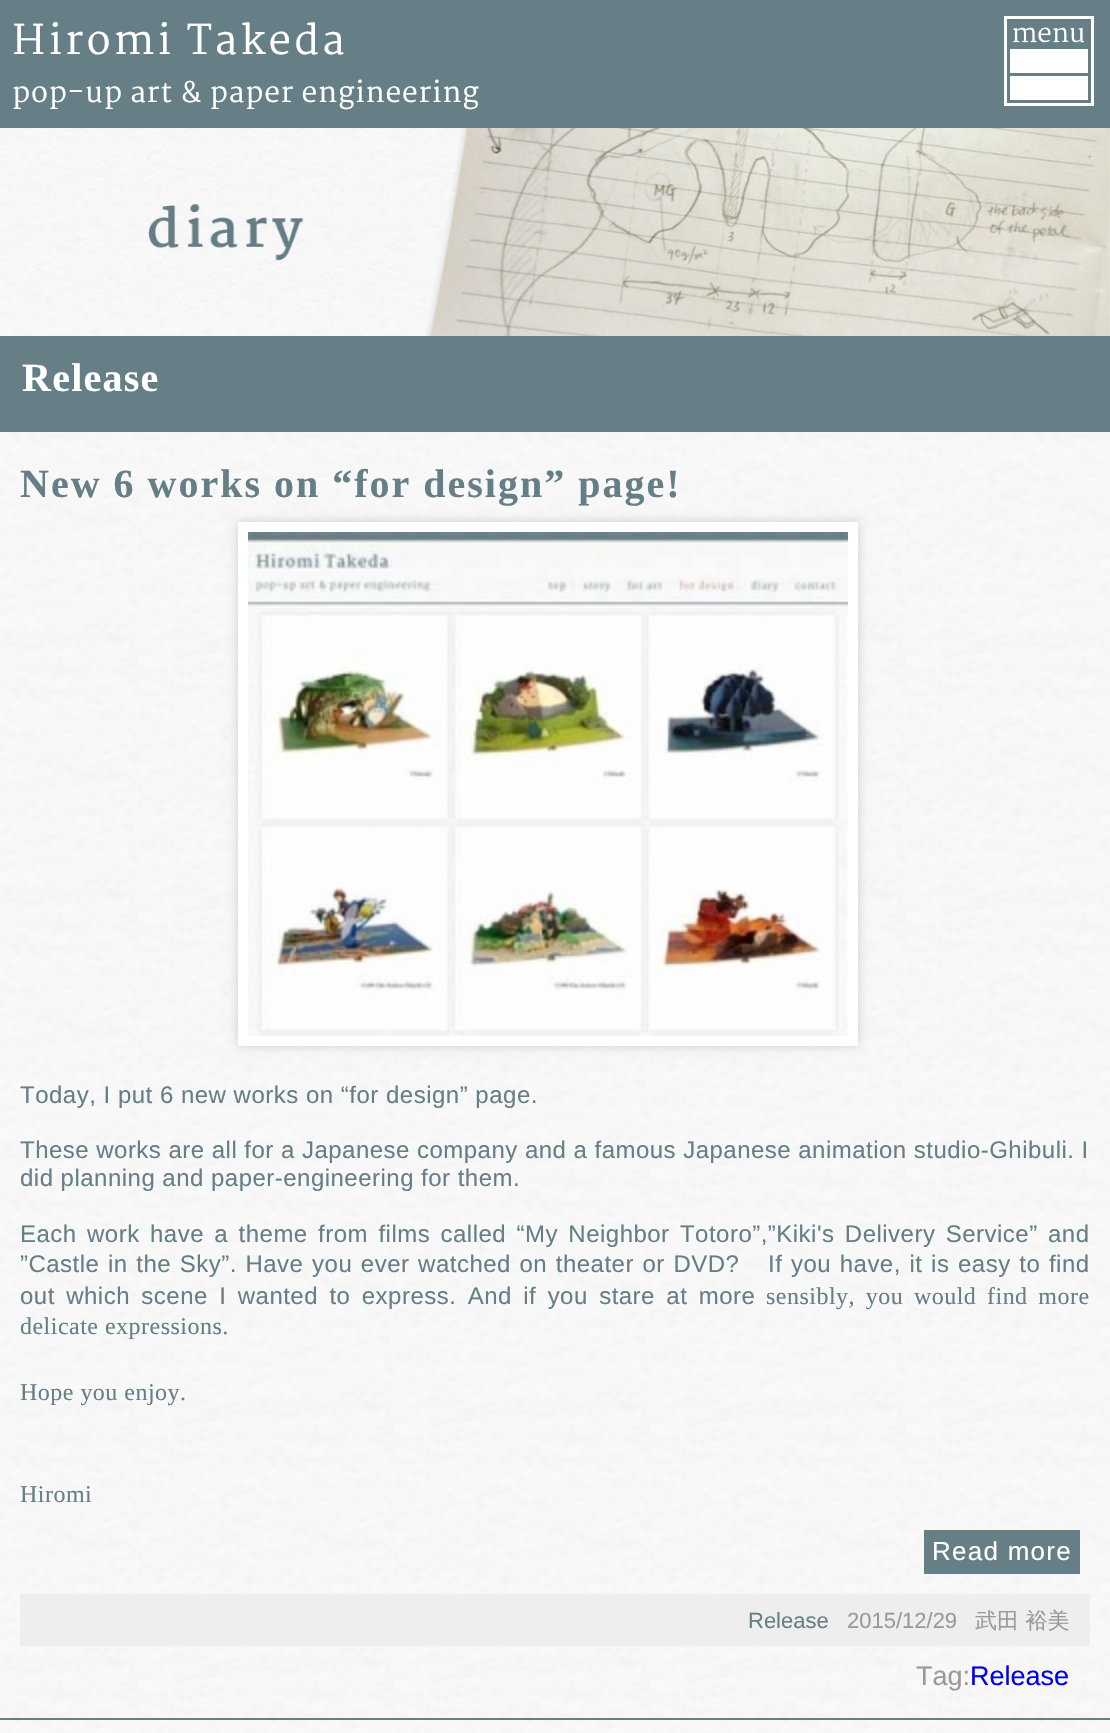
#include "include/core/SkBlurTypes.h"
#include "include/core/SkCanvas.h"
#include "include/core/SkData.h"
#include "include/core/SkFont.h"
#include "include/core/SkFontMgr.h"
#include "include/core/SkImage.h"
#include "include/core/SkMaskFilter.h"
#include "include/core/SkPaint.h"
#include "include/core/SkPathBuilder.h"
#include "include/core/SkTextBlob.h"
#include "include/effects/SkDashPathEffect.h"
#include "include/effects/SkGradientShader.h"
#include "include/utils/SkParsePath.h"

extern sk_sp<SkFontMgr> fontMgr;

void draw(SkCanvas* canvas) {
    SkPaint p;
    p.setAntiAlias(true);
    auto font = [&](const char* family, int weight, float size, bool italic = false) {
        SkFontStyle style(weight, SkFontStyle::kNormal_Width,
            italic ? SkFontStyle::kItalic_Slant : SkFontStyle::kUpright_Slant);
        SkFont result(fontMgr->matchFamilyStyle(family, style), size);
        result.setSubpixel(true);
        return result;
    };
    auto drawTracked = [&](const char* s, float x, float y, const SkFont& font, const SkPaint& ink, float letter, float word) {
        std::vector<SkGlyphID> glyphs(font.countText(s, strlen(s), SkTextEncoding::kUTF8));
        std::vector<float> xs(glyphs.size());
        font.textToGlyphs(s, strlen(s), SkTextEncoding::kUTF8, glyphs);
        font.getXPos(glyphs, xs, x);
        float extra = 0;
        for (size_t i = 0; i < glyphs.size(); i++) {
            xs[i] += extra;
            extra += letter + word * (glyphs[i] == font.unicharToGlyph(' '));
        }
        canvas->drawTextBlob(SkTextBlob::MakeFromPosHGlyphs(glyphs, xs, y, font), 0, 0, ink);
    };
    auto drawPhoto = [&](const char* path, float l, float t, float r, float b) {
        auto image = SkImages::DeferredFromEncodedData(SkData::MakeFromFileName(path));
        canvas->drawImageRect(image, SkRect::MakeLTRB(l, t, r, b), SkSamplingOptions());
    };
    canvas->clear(0xFFFFFFFF);
    drawPhoto("media/1.png", 0, 128, 1110, 1733);
    p.setColor(0xFF667E86);
    canvas->drawRect(SkRect::MakeLTRB(0, 0, 1110, 128), p);
    auto font1 = font("Martel", 400, 40);
    p.setColor(0xFFFFFFFF);
    drawTracked("Hiromi Takeda", 12, 54, font1, p, 3.25f, 0);
    auto font2 = font("Martel", 400, 28);
    drawTracked("pop-up art & paper engineering", 12, 102, font2, p, 0.85f, 0);
    drawPhoto("media/2.png", 1004, 16, 1094, 106);
    drawPhoto("media/3.png", 0, 128, 1110, 336);
    p.setColor(0xFF667E86);
    canvas->drawRect(SkRect::MakeLTRB(0, 336, 1110, 432), p);
    auto font3 = font("Liberation Serif", 700, 40);
    p.setColor(0xFFFFFFFF);
    drawTracked("Release", 22, 391, font3, p, 1.25f, 0);
    p.setColor(0xFF667E86);
    canvas->drawRect(SkRect::MakeLTRB(0, 1718, 1110, 1720), p);
    drawTracked("New 6 works on “for design” page!", 20, 497, font3, p, 2, 0);
    p.setColor(0xFFCCCCCC);
    p.setMaskFilter(SkMaskFilter::MakeBlur(kNormal_SkBlurStyle, 5));
    canvas->drawRect(SkRect::MakeLTRB(238, 522, 858, 1046), p);
    p.setMaskFilter(nullptr);
    p.setStyle(SkPaint::kStroke_Style);
    p.setStrokeWidth(10);
    p.setColor(0xFFFFFFFF);
    canvas->drawRect(SkRect::MakeLTRB(243, 527, 853, 1041), p);
    drawPhoto("media/4.png", 248, 532, 848, 1036);
    auto font4 = font("Liberation Sans", 400, 24);
    p.setStyle(SkPaint::kFill_Style);
    p.setColor(0xFF667E86);
    drawTracked("Today, I put 6 new works on “for design” page.", 20, 1103, font4, p, 0.5f, 0);
    drawTracked("These works are all for a Japanese company and a famous Japanese animation studio-Ghibuli. I", 20, 1158, font4, p, 0.48f, 0);
    drawTracked("did planning and paper-engineering for them.", 20, 1186, font4, p, 0.48f, 0);
    drawTracked("Each work have a theme from films called “My Neighbor Totoro”,”Kiki's Delivery Service” and", 20, 1242, font4, p, 0.48f, 3.25f);
    drawTracked("”Castle in the Sky”. Have you ever watched on theater or DVD?", 20, 1272, font4, p, 0.48f, 1.5f);
    drawTracked("If you have, it is easy to find", 768, 1272, font4, p, 0.48f, 1.5f);
    drawTracked("out which scene I wanted to express. And if you stare at more", 20, 1304, font4, p, 0.48f, 4.25f);
    auto font5 = font("Liberation Serif", 400, 24);
    drawTracked("sensibly, you would find more", 766, 1304, font5, p, 0.48f, 4.25f);
    {
        const struct { const char* s; float x, y; } items[] = {
            {"delicate expressions.", 20, 1334},
            {"Hope you enjoy.", 20, 1400},
            {"Hiromi", 20, 1502},
        };
        for (auto [s, x, y] : items) {
            drawTracked(s, x, y, font5, p, 0.48f, 0);
        }
    }
    canvas->drawRect(SkRect::MakeLTRB(924, 1530, 1080, 1574), p);
    auto font6 = font("Liberation Sans", 400, 26);
    p.setColor(0xFFFFFFFF);
    drawTracked("Read more", 932, 1560, font6, p, 1.25f, 0);
    p.setColor(0xFFEEEEEE);
    canvas->drawRect(SkRect::MakeLTRB(20, 1594, 1090, 1646), p);
    auto font7 = font("Liberation Sans", 400, 22);
    p.setColor(0xFF667E86);
    canvas->drawString("Release", 748, 1628, font7, p);
    p.setColor(0xFF999999);
    canvas->drawString("2015/12/29", 847, 1628, font7, p);
    auto font8 = font("WenQuanYi Zen Hei", 500, 22);
    canvas->drawString("武田 裕美", 975, 1628, font8, p);
    auto font9 = font("Liberation Sans", 400, 27);
    canvas->drawString("Tag:", 916, 1685, font9, p);
    p.setColor(0xFF0000EE);
    canvas->drawString("Release", 970, 1685, font9, p);
}
